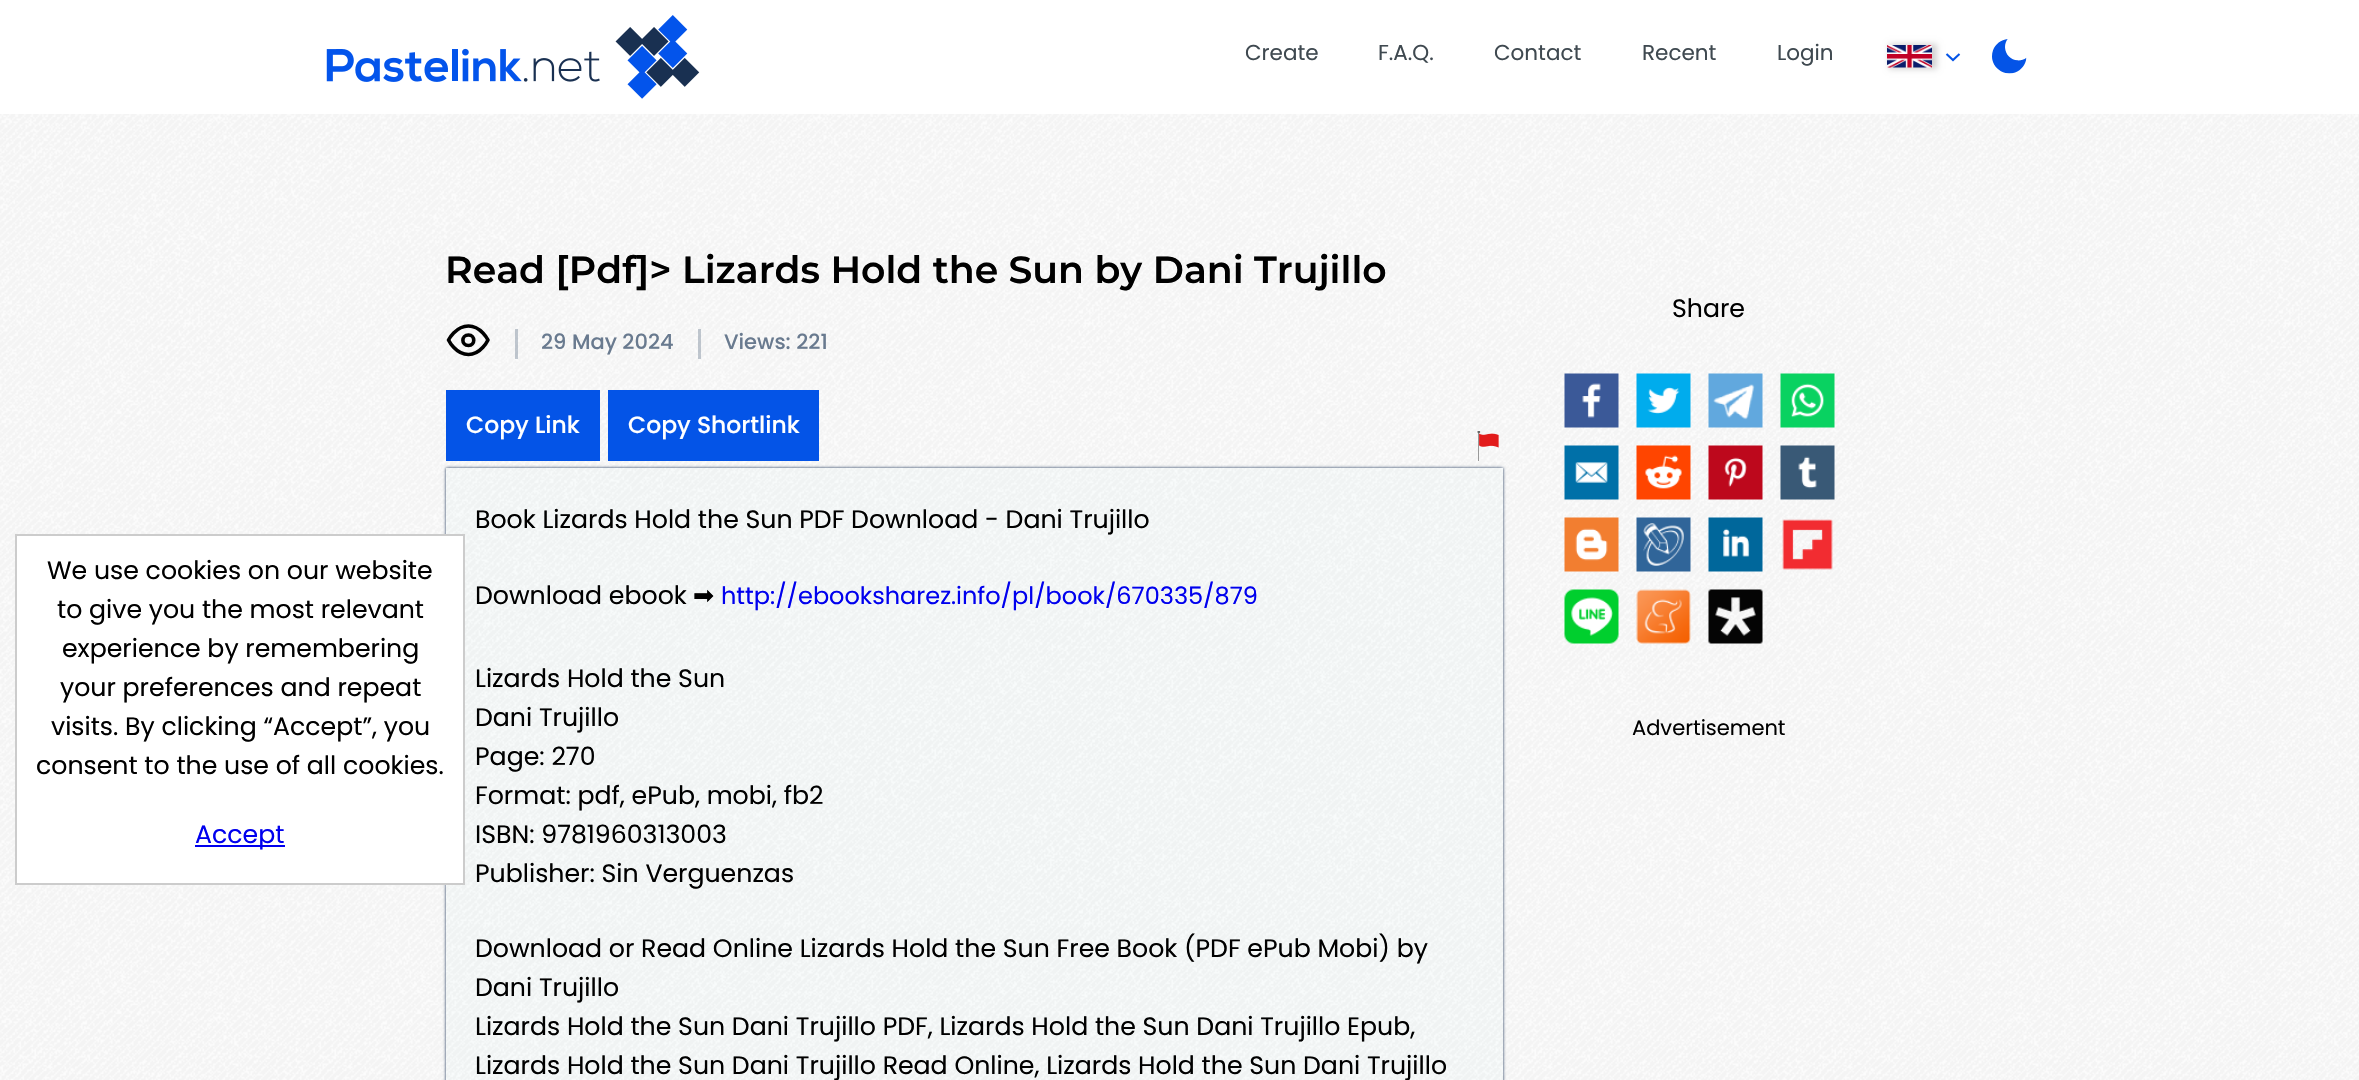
#include "include/core/SkBlurTypes.h"
#include "include/core/SkCanvas.h"
#include "include/core/SkData.h"
#include "include/core/SkFont.h"
#include "include/core/SkFontMgr.h"
#include "include/core/SkImage.h"
#include "include/core/SkMaskFilter.h"
#include "include/core/SkPaint.h"
#include "include/core/SkPathBuilder.h"
#include "include/core/SkTextBlob.h"
#include "include/effects/SkDashPathEffect.h"
#include "include/effects/SkGradientShader.h"
#include "include/utils/SkParsePath.h"

extern sk_sp<SkFontMgr> fontMgr;

void draw(SkCanvas* canvas) {
    SkPaint p;
    p.setAntiAlias(true);
    auto font = [&](const char* family, int weight, float size, bool italic = false) {
        SkFontStyle style(weight, SkFontStyle::kNormal_Width,
            italic ? SkFontStyle::kItalic_Slant : SkFontStyle::kUpright_Slant);
        SkFont result(fontMgr->matchFamilyStyle(family, style), size);
        result.setSubpixel(true);
        return result;
    };
    auto drawPhoto = [&](const char* path, float l, float t, float r, float b) {
        auto image = SkImages::DeferredFromEncodedData(SkData::MakeFromFileName(path));
        canvas->drawImageRect(image, SkRect::MakeLTRB(l, t, r, b), SkSamplingOptions());
    };
    canvas->clear(0xFFFFFFFF);
    drawPhoto("media/1.png", 0, 114, 2359, 1080);
    drawPhoto("media/2.png", 326, 15, 700, 99);
    auto font1 = font("Poppins", 400, 21.5f);
    p.setColor(0xFF3F4950);
    {
        const struct { const char* s; float x, y; } items[] = {
            {"Create", 1245, 60},
            {"F.A.Q.", 1378, 60},
            {"Contact", 1494, 60},
            {"Recent", 1642, 60},
            {"Login", 1777, 60},
        };
        for (auto [s, x, y] : items) {
            canvas->drawString(s, x, y, font1, p);
        }
    }
    p.setColor(0xFFD2D2D2);
    p.setMaskFilter(SkMaskFilter::MakeBlur(kNormal_SkBlurStyle, 3));
    canvas->drawRect(SkRect::MakeLTRB(1889, 44, 1937, 69), p);
    p.setMaskFilter(nullptr);
    drawPhoto("media/3.png", 1887, 45, 1932, 68);
    p.setStyle(SkPaint::kStroke_Style);
    p.setStrokeWidth(2.1f);
    p.setColor(0xFF0454E7);
    canvas->drawPath(SkPathBuilder().moveTo(1959.5f, 54).lineTo(1953, 60).lineTo(1946.5f, 54).detach(), p);
    drawPhoto("media/4.png", 1992, 39, 2027, 74);
    canvas->save();
    canvas->clipPath(SkPathBuilder(SkPathFillType::kEvenOdd).moveTo(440, 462).lineTo(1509, 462).lineTo(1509, 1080).lineTo(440, 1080).close().moveTo(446, 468).lineTo(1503, 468).lineTo(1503, 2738).lineTo(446, 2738).close().detach(), true);
    p.setStyle(SkPaint::kFill_Style);
    p.setColor(0xFF172F54);
    p.setMaskFilter(SkMaskFilter::MakeBlur(kNormal_SkBlurStyle, 1.5f));
    canvas->drawRect(SkRect::MakeLTRB(446, 468, 1503, 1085), p);
    p.setMaskFilter(nullptr);
    canvas->restore();
    p.setColor(0x0A8EDFE6);
    canvas->drawRect(SkRect::MakeLTRB(446, 468, 1503, 1080), p);
    p.setColor(0xFFFFFFFF);
    canvas->drawRect(SkRect::MakeLTRB(16, 535, 464, 884), p);
    p.setStyle(SkPaint::kStroke_Style);
    p.setStrokeWidth(2);
    p.setColor(0xFFCCCCCC);
    canvas->drawRect(SkRect::MakeLTRB(16, 535, 464, 884), p);
    auto font2 = font("Poppins", 400, 25.2f);
    p.setStyle(SkPaint::kFill_Style);
    p.setColor(0xFF000000);
    {
        const struct { const char* s; float x, y; } items[] = {
            {"We use cookies on our website", 47, 579},
            {"to give you the most relevant", 57, 618},
            {"experience by remembering", 62, 657},
            {"your preferences and repeat", 60, 696},
            {"visits. By clicking “Accept”, you", 51, 735},
            {"consent to the use of all cookies.", 36, 774},
        };
        for (auto [s, x, y] : items) {
            canvas->drawString(s, x, y, font2, p);
        }
    }
    p.setColor(0xFF0000EE);
    canvas->drawRect(SkRect::MakeLTRB(195, 845, 285, 847), p);
    canvas->drawString("Accept", 195, 843, font2, p);
    auto font3 = font("Montserrat", 100, 37.8f);
    p.setColor(0xFF000000);
    canvas->drawString("Read [Pdf]> Lizards Hold the Sun by Dani Trujillo", 445, 283, font3, p);
    p.setStyle(SkPaint::kStroke_Style);
    p.setStrokeWidth(3.6f);
    p.setStrokeCap(SkPaint::kRound_Cap);
    p.setStrokeJoin(SkPaint::kRound_Join);
    canvas->drawPath(SkPathBuilder().moveTo(448.5f, 340).cubicTo(448.5f, 340, 455.5f, 326, 468.5f, 326).cubicTo(481, 326, 488, 340, 488, 340).cubicTo(488, 340, 481, 354.5f, 468.5f, 354.5f).cubicTo(455.5f, 354.5f, 448.5f, 340, 448.5f, 340).close().moveTo(468.5f, 345.5f).cubicTo(475.5f, 345.5f, 475.5f, 335, 468.5f, 335).cubicTo(461, 335, 461, 345.5f, 468.5f, 345.5f).close().detach(), p);
    p.setStyle(SkPaint::kFill_Style);
    p.setColor(0x66697A8F);
    canvas->drawRect(SkRect::MakeLTRB(515, 329, 518, 359), p);
    auto font4 = font("Poppins", 500, 21);
    p.setColor(0xFF697A8F);
    canvas->drawString("29 May 2024", 541, 349, font4, p);
    p.setColor(0x66697A8F);
    canvas->drawRect(SkRect::MakeLTRB(698, 329, 701, 359), p);
    p.setColor(0xFF697A8F);
    canvas->drawString("Views: 221", 724, 349, font4, p);
    p.setColor(0xFF0454E7);
    canvas->drawRect(SkRect::MakeLTRB(446, 390, 600, 461), p);
    auto font5 = font("Poppins", 500, 23.5f);
    p.setColor(0xFFFFFFFF);
    canvas->drawString("Copy Link", 466, 433, font5, p);
    p.setColor(0xFF0454E7);
    canvas->drawRect(SkRect::MakeLTRB(608, 390, 819, 461), p);
    p.setColor(0xFFFFFFFF);
    canvas->drawString("Copy Shortlink", 628, 433, font5, p);
    drawPhoto("media/5.png", 1477, 431, 1499, 461);
    p.setColor(0xFF000000);
    canvas->drawString("Book Lizards Hold the Sun PDF Download - Dani Trujillo", 475, 528, font2, p);
    canvas->drawString("Download ebook", 475, 604, font2, p);
    auto font6 = font("DejaVu Sans", 400, 25.2f);
    canvas->drawString("➡", 693, 604, font6, p);
    auto font7 = font("Poppins", 400, 24);
    p.setColor(0xFF0000EE);
    canvas->drawString("http://ebooksharez.info/pl/book/670335/879", 721, 604, font7, p);
    p.setColor(0xFF000000);
    {
        const struct { const char* s; float x, y; } items[] = {
            {"Lizards Hold the Sun", 475, 687},
            {"Dani Trujillo", 475, 726},
            {"Page: 270", 475, 765},
            {"Format: pdf, ePub, mobi, fb2", 475, 804},
            {"ISBN: 9781960313003", 475, 843},
            {"Publisher: Sin Verguenzas", 475, 882},
            {"Download or Read Online Lizards Hold the Sun Free Book (PDF ePub Mobi) by", 475, 957},
            {"Dani Trujillo", 475, 996},
            {"Lizards Hold the Sun Dani Trujillo PDF, Lizards Hold the Sun Dani Trujillo Epub,", 475, 1035},
            {"Lizards Hold the Sun Dani Trujillo Read Online, Lizards Hold the Sun Dani Trujillo", 475, 1074},
            {"Share", 1672, 317},
        };
        for (auto [s, x, y] : items) {
            canvas->drawString(s, x, y, font2, p);
        }
    }
    drawPhoto("media/6.png", 1564, 373, 1619, 428);
    drawPhoto("media/7.png", 1636, 373, 1691, 428);
    drawPhoto("media/8.png", 1708, 373, 1763, 428);
    drawPhoto("media/9.png", 1780, 373, 1835, 428);
    drawPhoto("media/10.png", 1564, 445, 1619, 500);
    drawPhoto("media/11.png", 1636, 445, 1691, 500);
    drawPhoto("media/12.png", 1708, 445, 1763, 500);
    drawPhoto("media/13.png", 1780, 445, 1835, 500);
    drawPhoto("media/14.png", 1564, 517, 1619, 572);
    drawPhoto("media/15.png", 1636, 517, 1691, 572);
    drawPhoto("media/16.png", 1708, 517, 1763, 572);
    drawPhoto("media/17.png", 1782, 519, 1833, 570);
    drawPhoto("media/18.png", 1564, 589, 1619, 644);
    drawPhoto("media/19.png", 1636, 589, 1691, 644);
    drawPhoto("media/20.png", 1708, 589, 1763, 644);
    auto font8 = font("Poppins", 400, 21);
    canvas->drawString("Advertisement", 1632, 735, font8, p);
}
